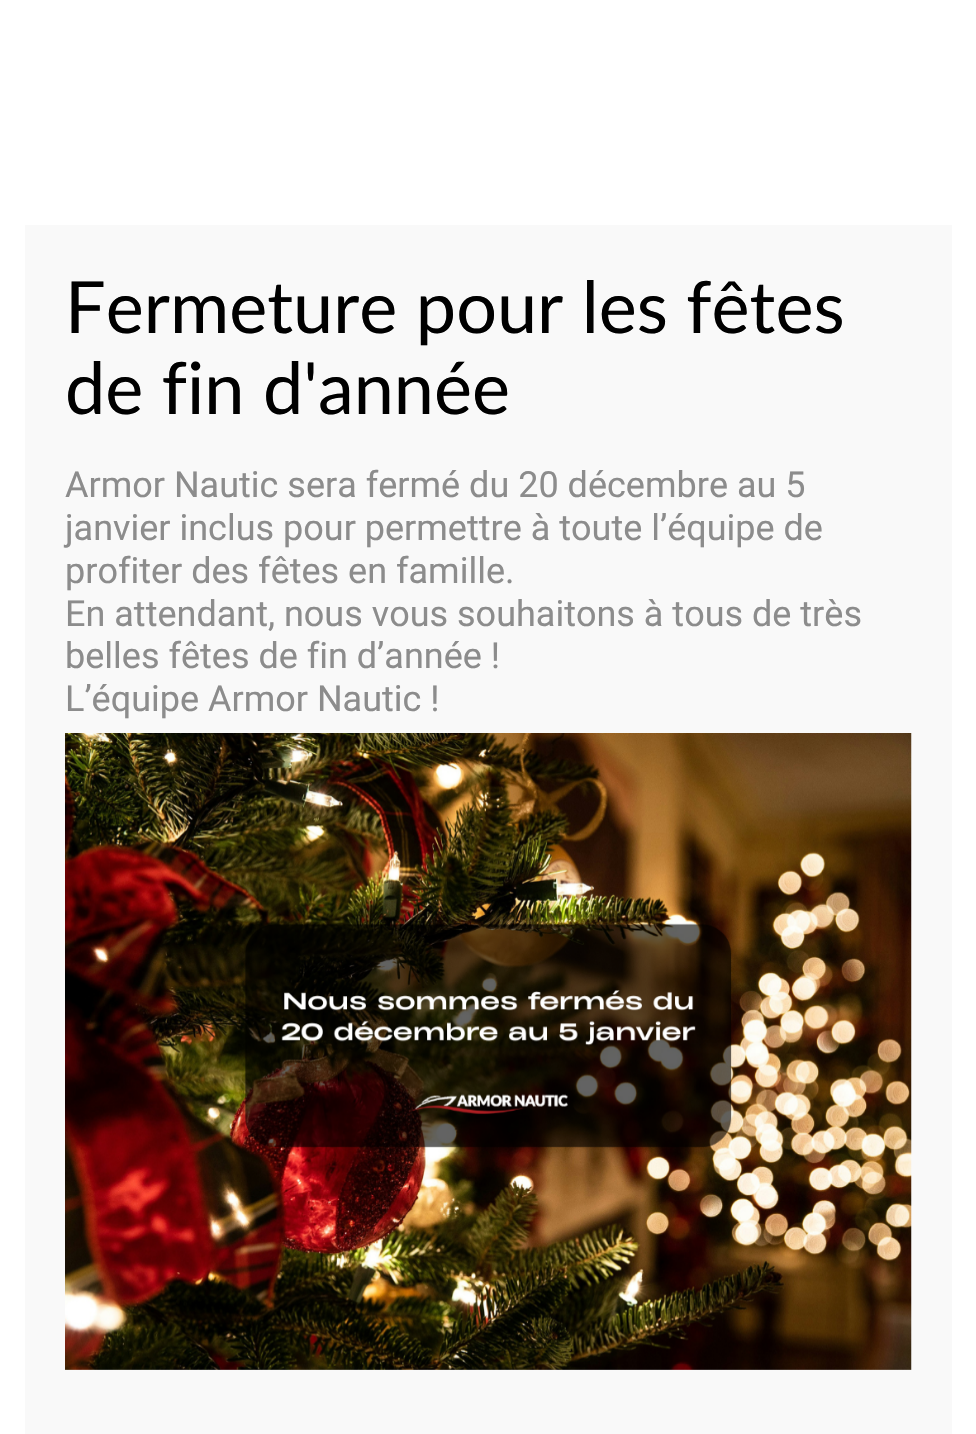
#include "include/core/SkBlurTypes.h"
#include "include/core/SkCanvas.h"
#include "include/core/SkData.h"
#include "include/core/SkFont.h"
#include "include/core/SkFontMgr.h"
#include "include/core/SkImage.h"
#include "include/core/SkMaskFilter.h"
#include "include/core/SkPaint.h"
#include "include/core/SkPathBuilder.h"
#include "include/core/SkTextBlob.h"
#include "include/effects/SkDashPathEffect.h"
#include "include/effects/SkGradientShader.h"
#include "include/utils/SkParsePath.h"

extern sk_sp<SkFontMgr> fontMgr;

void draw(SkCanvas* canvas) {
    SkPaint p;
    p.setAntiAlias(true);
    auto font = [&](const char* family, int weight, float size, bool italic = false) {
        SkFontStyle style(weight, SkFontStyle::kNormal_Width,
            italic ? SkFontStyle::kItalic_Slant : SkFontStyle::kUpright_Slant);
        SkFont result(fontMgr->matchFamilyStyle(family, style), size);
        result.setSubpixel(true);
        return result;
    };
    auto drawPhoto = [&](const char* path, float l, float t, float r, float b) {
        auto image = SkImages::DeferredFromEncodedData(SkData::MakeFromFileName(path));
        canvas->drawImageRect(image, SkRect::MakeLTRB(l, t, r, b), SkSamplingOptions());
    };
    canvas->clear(0xFFFFFFFF);
    p.setColor(0xFFF9F9F9);
    canvas->drawRect(SkRect::MakeLTRB(25, 225, 952, 1434), p);
    auto font1 = font("Lato", 400, 72);
    p.setColor(0xFF000000);
    canvas->drawString("Fermeture pour les fêtes", 65, 333, font1, p);
    canvas->drawString("de fin d'année", 65, 414, font1, p);
    auto font2 = font("Roboto", 400, 36);
    p.setColor(0xFF8C8C8C);
    {
        const struct { const char* s; float x, y; } items[] = {
            {"Armor Nautic sera fermé du 20 décembre au 5", 65, 497},
            {"janvier inclus pour permettre à toute l’équipe de", 65, 540},
            {"profiter des fêtes en famille.", 65, 583},
            {"En attendant, nous vous souhaitons à tous de très", 65, 626},
            {"belles fêtes de fin d’année !", 65, 668},
            {"L’équipe Armor Nautic !", 65, 711},
        };
        for (auto [s, x, y] : items) {
            canvas->drawString(s, x, y, font2, p);
        }
    }
    drawPhoto("media/1.png", 65, 733, 912, 1370);
}
